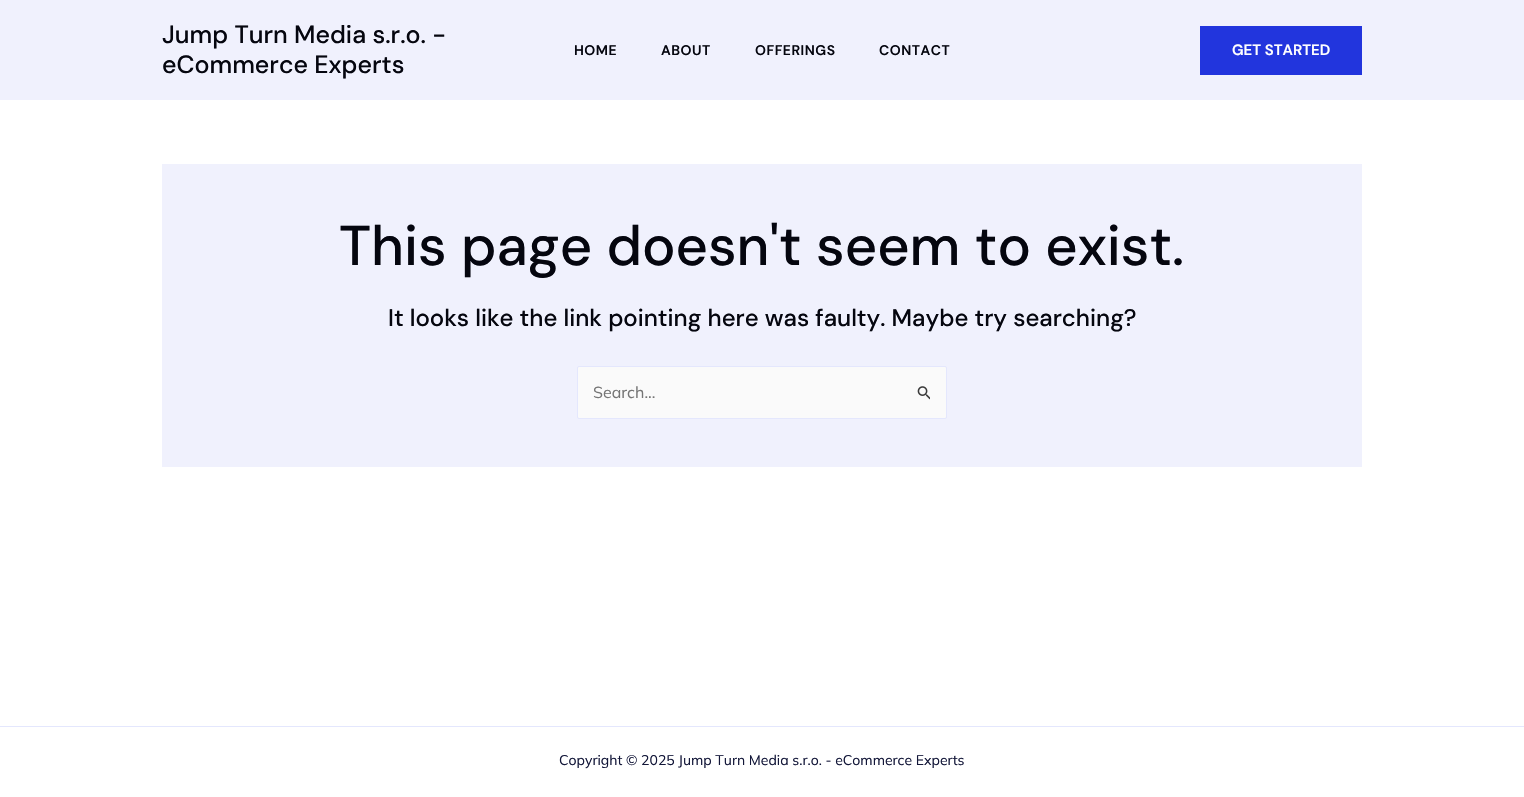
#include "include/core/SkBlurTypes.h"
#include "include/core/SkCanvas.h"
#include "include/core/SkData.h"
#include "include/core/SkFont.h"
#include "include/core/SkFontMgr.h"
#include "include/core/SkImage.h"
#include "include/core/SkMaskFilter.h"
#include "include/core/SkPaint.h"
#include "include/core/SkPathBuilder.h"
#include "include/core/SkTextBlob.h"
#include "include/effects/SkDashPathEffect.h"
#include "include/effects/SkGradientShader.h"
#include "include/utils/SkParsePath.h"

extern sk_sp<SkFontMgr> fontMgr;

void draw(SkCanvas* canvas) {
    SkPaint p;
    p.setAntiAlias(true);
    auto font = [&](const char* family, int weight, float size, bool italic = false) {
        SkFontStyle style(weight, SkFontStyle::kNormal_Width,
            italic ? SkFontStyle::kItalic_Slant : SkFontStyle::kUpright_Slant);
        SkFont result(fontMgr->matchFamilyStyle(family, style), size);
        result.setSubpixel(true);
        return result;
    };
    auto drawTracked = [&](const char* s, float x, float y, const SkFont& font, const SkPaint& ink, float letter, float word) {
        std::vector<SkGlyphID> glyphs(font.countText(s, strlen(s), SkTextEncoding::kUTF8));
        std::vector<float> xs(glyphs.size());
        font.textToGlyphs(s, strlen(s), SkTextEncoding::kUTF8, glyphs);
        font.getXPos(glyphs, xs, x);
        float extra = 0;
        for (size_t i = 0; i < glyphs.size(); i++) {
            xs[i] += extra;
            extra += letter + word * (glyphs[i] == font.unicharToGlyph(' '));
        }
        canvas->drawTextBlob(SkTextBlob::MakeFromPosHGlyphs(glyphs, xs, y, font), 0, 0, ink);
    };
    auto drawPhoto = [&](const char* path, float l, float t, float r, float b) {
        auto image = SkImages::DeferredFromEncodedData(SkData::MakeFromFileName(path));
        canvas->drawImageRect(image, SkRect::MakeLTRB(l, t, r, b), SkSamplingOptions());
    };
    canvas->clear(0xFFFFFFFF);
    p.setColor(0xFFF0F1FD);
    canvas->drawRect(SkRect::MakeLTRB(0, 0, 1524, 100), p);
    auto font1 = font("DM Sans", 500, 25);
    p.setColor(0xFF05060F);
    canvas->drawString("Jump Turn Media s.r.o. -", 162, 43, font1, p);
    canvas->drawString("eCommerce Experts", 162, 73, font1, p);
    auto font2 = font("DM Sans", 600, 14);
    {
        const struct { const char* s; float x, y; } items[] = {
            {"HOME", 574, 55},
            {"ABOUT", 661, 55},
            {"OFFERINGS", 755, 55},
            {"CONTACT", 879, 55},
        };
        for (auto [s, x, y] : items) {
            drawTracked(s, x, y, font2, p, 0.5f, 0);
        }
    }
    p.setColor(0xFF2235DD);
    canvas->drawRect(SkRect::MakeLTRB(1200, 26, 1362, 75), p);
    auto font3 = font("DM Sans", 600, 15);
    p.setColor(0xFFFFFFFF);
    canvas->drawString("GET STARTED", 1232, 55, font3, p);
    p.setColor(0xFFF0F1FD);
    canvas->drawRect(SkRect::MakeLTRB(162, 164, 1362, 467), p);
    auto font4 = font("DM Sans", 500, 56);
    p.setColor(0xFF05060F);
    canvas->drawString("This page doesn't seem to exist.", 339, 265, font4, p);
    auto font5 = font("DM Sans", 500, 24);
    canvas->drawString("It looks like the link pointing here was faulty. Maybe try searching?", 388, 326, font5, p);
    p.setColor(0xFFFAFAFA);
    canvas->drawRoundRect(SkRect::MakeLTRB(577.5f, 366.5f, 946.5f, 418.5f), 1.5f, 1.5f, p);
    p.setStyle(SkPaint::kStroke_Style);
    p.setStrokeWidth(1);
    p.setColor(0xFFE4E7FD);
    canvas->drawRoundRect(SkRect::MakeLTRB(577.5f, 366.5f, 946.5f, 418.5f), 1.5f, 1.5f, p);
    auto font6 = font("Mulish", 400, 16);
    p.setStyle(SkPaint::kFill_Style);
    p.setColor(0xFF757575);
    canvas->drawString("Search...", 593, 398, font6, p);
    drawPhoto("media/1.png", 917, 386, 930, 400);
    p.setColor(0xFFE4E7FD);
    canvas->drawRect(SkRect::MakeLTRB(0, 726, 1524, 727), p);
    auto font7 = font("Mulish", 400, 14);
    p.setColor(0xFF131739);
    canvas->drawString("Copyright © 2025 Jump Turn Media s.r.o. - eCommerce Experts", 559, 765, font7, p);
}
